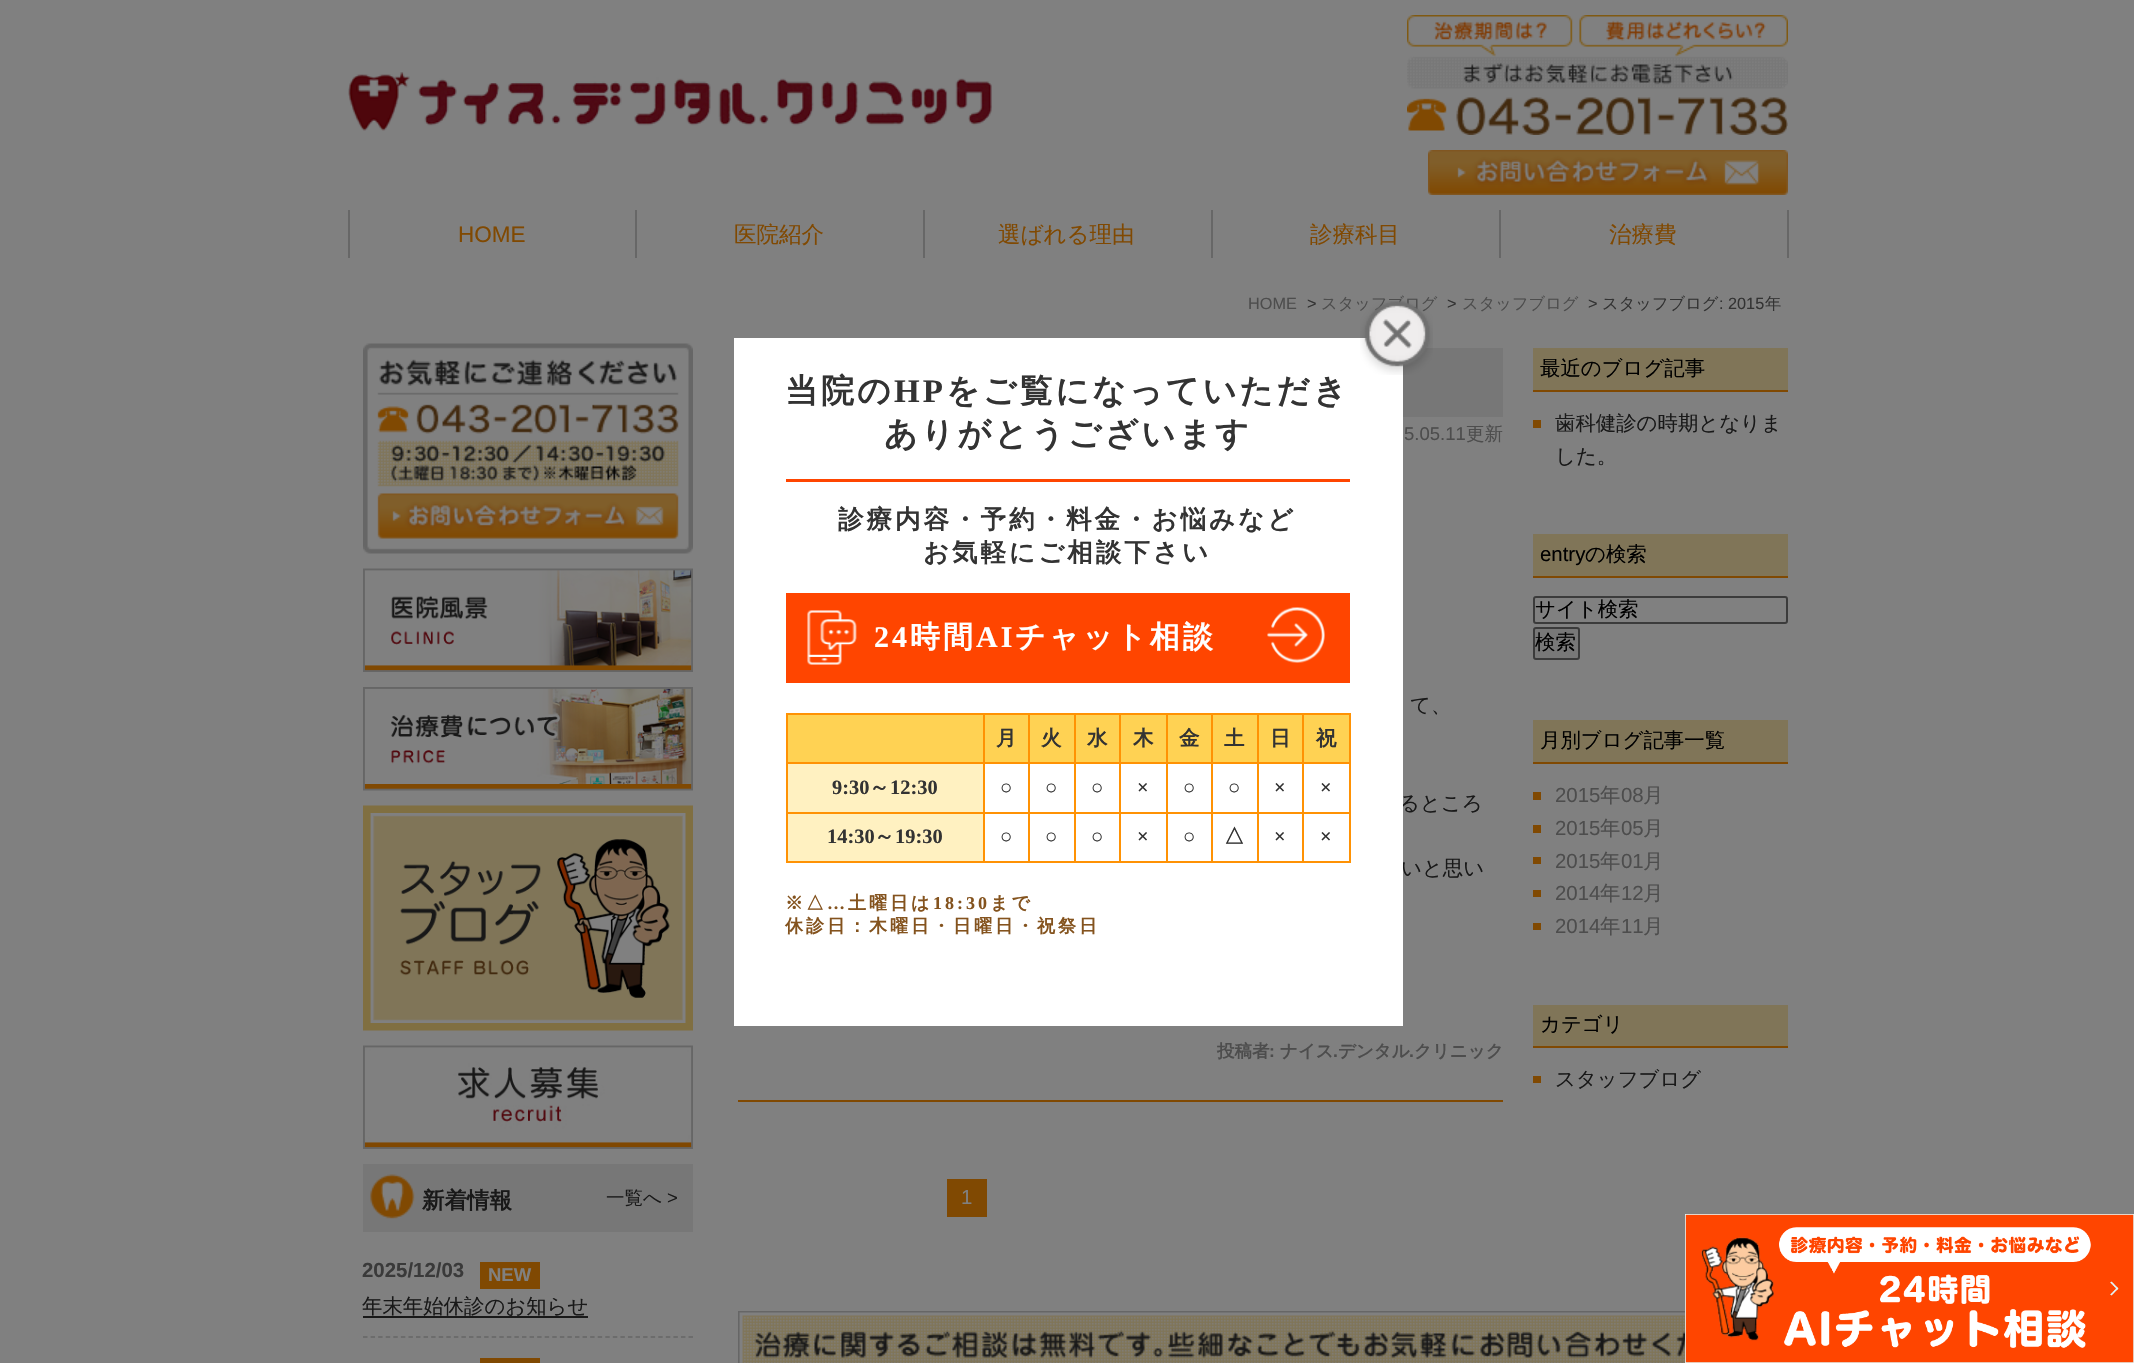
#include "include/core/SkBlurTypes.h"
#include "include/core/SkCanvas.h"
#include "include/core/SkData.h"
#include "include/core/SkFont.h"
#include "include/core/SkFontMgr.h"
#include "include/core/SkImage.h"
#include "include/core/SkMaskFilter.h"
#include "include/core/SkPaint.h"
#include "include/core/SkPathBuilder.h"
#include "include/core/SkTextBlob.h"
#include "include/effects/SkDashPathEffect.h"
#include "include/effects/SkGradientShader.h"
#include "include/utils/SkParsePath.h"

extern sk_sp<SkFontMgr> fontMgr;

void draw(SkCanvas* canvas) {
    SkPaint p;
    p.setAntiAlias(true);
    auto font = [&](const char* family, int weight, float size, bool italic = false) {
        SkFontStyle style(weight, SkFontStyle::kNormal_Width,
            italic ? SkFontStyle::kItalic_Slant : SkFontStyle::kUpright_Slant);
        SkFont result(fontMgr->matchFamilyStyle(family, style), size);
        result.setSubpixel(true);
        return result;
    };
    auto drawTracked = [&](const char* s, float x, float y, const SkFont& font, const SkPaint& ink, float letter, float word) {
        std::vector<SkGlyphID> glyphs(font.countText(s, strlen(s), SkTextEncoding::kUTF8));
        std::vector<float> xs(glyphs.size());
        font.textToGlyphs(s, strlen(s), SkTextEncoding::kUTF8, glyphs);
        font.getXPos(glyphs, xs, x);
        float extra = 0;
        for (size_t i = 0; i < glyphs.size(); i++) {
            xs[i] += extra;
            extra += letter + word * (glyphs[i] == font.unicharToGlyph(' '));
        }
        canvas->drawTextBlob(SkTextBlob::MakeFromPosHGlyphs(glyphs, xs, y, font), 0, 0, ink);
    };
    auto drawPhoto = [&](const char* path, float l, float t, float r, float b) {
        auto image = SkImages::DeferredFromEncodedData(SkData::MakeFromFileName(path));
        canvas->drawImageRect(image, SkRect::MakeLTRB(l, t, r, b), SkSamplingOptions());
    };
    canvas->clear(0xFF808080);
    drawPhoto("media/1.png", 348, 72, 992, 131);
    drawPhoto("media/2.png", 1407, 15, 1788, 135);
    drawPhoto("media/3.png", 1428, 150, 1788, 195);
    p.setColor(0xFF676767);
    canvas->drawRect(SkRect::MakeLTRB(635, 210, 637, 258), p);
    canvas->drawRect(SkRect::MakeLTRB(348, 210, 350, 258), p);
    auto font1 = font("Liberation Sans", 400, 22.5f);
    p.setColor(0xFF804902);
    canvas->drawString("HOME", 458, 242, font1, p);
    p.setColor(0xFF676767);
    canvas->drawRect(SkRect::MakeLTRB(923, 210, 925, 258), p);
    auto font2 = font("WenQuanYi Zen Hei", 500, 22.5f);
    p.setColor(0xFF804902);
    canvas->drawString("医院紹介", 734, 242, font2, p);
    p.setColor(0xFF676767);
    canvas->drawRect(SkRect::MakeLTRB(1211, 210, 1213, 258), p);
    p.setColor(0xFF804902);
    canvas->drawString("選ばれる理由", 998, 242, font2, p);
    p.setColor(0xFF676767);
    canvas->drawRect(SkRect::MakeLTRB(1499, 210, 1501, 258), p);
    p.setColor(0xFF804902);
    canvas->drawString("診療科目", 1310, 242, font2, p);
    p.setColor(0xFF676767);
    canvas->drawRect(SkRect::MakeLTRB(1787, 210, 1789, 258), p);
    p.setColor(0xFF804902);
    canvas->drawString("治療費", 1609, 242, font2, p);
    auto font3 = font("Liberation Sans", 400, 16.25f);
    p.setColor(0xFF4D4D4D);
    canvas->drawString("HOME", 1248, 309, font3, p);
    p.setColor(0xFF333333);
    canvas->drawString(">", 1307, 309, font3, p);
    auto font4 = font("WenQuanYi Zen Hei", 500, 16.25f);
    p.setColor(0xFF4D4D4D);
    canvas->drawString("スタッフブログ", 1321, 309, font4, p);
    p.setColor(0xFF333333);
    canvas->drawString(">", 1447, 309, font3, p);
    p.setColor(0xFF4D4D4D);
    canvas->drawString("スタッフブログ", 1462, 309, font4, p);
    p.setColor(0xFF333333);
    canvas->drawString(">", 1588, 309, font3, p);
    canvas->drawString("スタッフブログ", 1602, 309, font4, p);
    canvas->drawString(": 2015", 1719, 309, font3, p);
    canvas->drawString("年", 1765, 309, font4, p);
    p.setColor(0xFF777777);
    canvas->drawRect(SkRect::MakeLTRB(1403, 348, 1503, 417), p);
    auto font5 = font("Liberation Sans", 400, 18.5f);
    p.setColor(0xFF4D4D4D);
    canvas->drawString("5.05.11", 1404, 440, font5, p);
    auto font6 = font("WenQuanYi Zen Hei", 500, 18.5f);
    canvas->drawString("更新", 1466, 440, font6, p);
    auto font7 = font("WenQuanYi Zen Hei", 500, 20.4f);
    p.setColor(0xFF191919);
    {
        const struct { const char* s; float x, y; } items[] = {
            {"て、", 1410, 712},
            {"るところ", 1399, 810},
            {"いと思い", 1401, 875},
        };
        for (auto [s, x, y] : items) {
            canvas->drawString(s, x, y, font7, p);
        }
    }
    auto font8 = font("WenQuanYi Zen Hei", 700, 17.5f);
    p.setColor(0xFF4D4D4D);
    canvas->drawString("投稿者", 1217, 1057, font8, p);
    auto font9 = font("Liberation Sans", 700, 17.5f);
    canvas->drawString(":", 1269, 1057, font9, p);
    canvas->drawString("ナイス", 1280, 1057, font8, p);
    canvas->drawString(".", 1333, 1057, font9, p);
    canvas->drawString("デンタル", 1338, 1057, font8, p);
    canvas->drawString(".", 1409, 1057, font9, p);
    canvas->drawString("クリニック", 1414, 1057, font8, p);
    p.setColor(0xFF804902);
    canvas->drawRect(SkRect::MakeLTRB(738, 1100, 1503, 1102), p);
    canvas->drawRect(SkRect::MakeLTRB(947, 1179, 987, 1217), p);
    auto font10 = font("Liberation Sans", 400, 20.4f);
    p.setColor(0xFF808080);
    canvas->drawString("1", 961, 1204, font10, p);
    p.setColor(0xFF807558);
    canvas->drawRect(SkRect::MakeLTRB(1533, 348, 1788, 390), p);
    p.setColor(0xFF804902);
    canvas->drawRect(SkRect::MakeLTRB(1533, 390, 1788, 392), p);
    p.setColor(0xFF000000);
    canvas->drawString("最近のブログ記事", 1540, 375, font7, p);
    p.setColor(0xFF804902);
    canvas->drawRect(SkRect::MakeLTRB(1533, 420, 1541, 428), p);
    p.setColor(0xFF191919);
    canvas->drawString("歯科健診の時期となりま", 1555, 430, font7, p);
    canvas->drawString("した。", 1555, 463, font7, p);
    p.setColor(0xFF807558);
    canvas->drawRect(SkRect::MakeLTRB(1533, 534, 1788, 576), p);
    p.setColor(0xFF804902);
    canvas->drawRect(SkRect::MakeLTRB(1533, 576, 1788, 578), p);
    p.setColor(0xFF000000);
    canvas->drawString("entry", 1540, 561, font10, p);
    canvas->drawString("の検索", 1585, 561, font7, p);
    p.setStyle(SkPaint::kStroke_Style);
    p.setStrokeWidth(2);
    p.setColor(0xFF3B3B3B);
    canvas->drawRoundRect(SkRect::MakeLTRB(1534, 597, 1787, 623), 2, 2, p);
    p.setStyle(SkPaint::kFill_Style);
    p.setColor(0xFF000000);
    canvas->drawString("サイト検索", 1535, 616, font7, p);
    p.setColor(0xFF787878);
    canvas->drawRoundRect(SkRect::MakeLTRB(1534, 628, 1579, 659), 2, 2, p);
    p.setStyle(SkPaint::kStroke_Style);
    p.setColor(0xFF3B3B3B);
    canvas->drawRoundRect(SkRect::MakeLTRB(1534, 628, 1579, 659), 2, 2, p);
    p.setStyle(SkPaint::kFill_Style);
    p.setColor(0xFF000000);
    canvas->drawString("検索", 1535, 649, font7, p);
    p.setColor(0xFF807558);
    canvas->drawRect(SkRect::MakeLTRB(1533, 720, 1788, 762), p);
    p.setColor(0xFF804902);
    canvas->drawRect(SkRect::MakeLTRB(1533, 762, 1788, 764), p);
    p.setColor(0xFF000000);
    canvas->drawString("月別ブログ記事一覧", 1540, 747, font7, p);
    p.setColor(0xFF804902);
    canvas->drawRect(SkRect::MakeLTRB(1533, 792, 1541, 800), p);
    p.setColor(0xFF4D4D4D);
    canvas->drawString("2015", 1555, 802, font10, p);
    canvas->drawString("年", 1600, 802, font7, p);
    canvas->drawString("08", 1621, 802, font10, p);
    canvas->drawString("月", 1643, 802, font7, p);
    p.setColor(0xFF804902);
    canvas->drawRect(SkRect::MakeLTRB(1533, 825, 1541, 833), p);
    p.setColor(0xFF4D4D4D);
    canvas->drawString("2015", 1555, 835, font10, p);
    canvas->drawString("年", 1600, 835, font7, p);
    canvas->drawString("05", 1621, 835, font10, p);
    canvas->drawString("月", 1643, 835, font7, p);
    p.setColor(0xFF804902);
    canvas->drawRect(SkRect::MakeLTRB(1533, 857, 1541, 864), p);
    p.setColor(0xFF4D4D4D);
    canvas->drawString("2015", 1555, 868, font10, p);
    canvas->drawString("年", 1600, 868, font7, p);
    canvas->drawString("01", 1621, 868, font10, p);
    canvas->drawString("月", 1643, 868, font7, p);
    p.setColor(0xFF804902);
    canvas->drawRect(SkRect::MakeLTRB(1533, 890, 1541, 897), p);
    p.setColor(0xFF4D4D4D);
    canvas->drawString("2014", 1555, 900, font10, p);
    canvas->drawString("年", 1600, 900, font7, p);
    canvas->drawString("12", 1621, 900, font10, p);
    canvas->drawString("月", 1643, 900, font7, p);
    p.setColor(0xFF804902);
    canvas->drawRect(SkRect::MakeLTRB(1533, 923, 1541, 930), p);
    p.setColor(0xFF4D4D4D);
    canvas->drawString("2014", 1555, 933, font10, p);
    canvas->drawString("年", 1600, 933, font7, p);
    canvas->drawString("11", 1621, 933, font10, p);
    canvas->drawString("月", 1643, 933, font7, p);
    p.setColor(0xFF807558);
    canvas->drawRect(SkRect::MakeLTRB(1533, 1005, 1788, 1046), p);
    p.setColor(0xFF804902);
    canvas->drawRect(SkRect::MakeLTRB(1533, 1046, 1788, 1048), p);
    p.setColor(0xFF000000);
    canvas->drawString("カテゴリ", 1540, 1031, font7, p);
    p.setColor(0xFF804902);
    canvas->drawRect(SkRect::MakeLTRB(1533, 1076, 1541, 1083), p);
    p.setColor(0xFF191919);
    canvas->drawString("スタッフブログ", 1555, 1086, font7, p);
    drawPhoto("media/4.png", 738, 1311, 1685, 1363);
    drawPhoto("media/5.png", 363, 343, 693, 554);
    drawPhoto("media/6.png", 363, 568, 693, 672);
    drawPhoto("media/7.png", 363, 687, 693, 791);
    drawPhoto("media/8.png", 363, 805, 693, 1031);
    drawPhoto("media/9.png", 363, 1045, 693, 1149);
    p.setColor(0xFF777777);
    canvas->drawRect(SkRect::MakeLTRB(363, 1164, 693, 1232), p);
    drawPhoto("media/10.png", 370, 1174, 415, 1219);
    auto font11 = font("WenQuanYi Zen Hei", 700, 22.5f);
    p.setColor(0xFF191919);
    canvas->drawString("新着情報", 422, 1208, font11, p);
    canvas->drawString("一覧へ", 606, 1204, font6, p);
    canvas->drawString(">", 667, 1204, font5, p);
    auto font12 = font("Liberation Sans", 700, 20.4f);
    p.setColor(0xFF3A3A3A);
    canvas->drawString("2025/12/03", 362, 1277, font12, p);
    p.setColor(0xFF804902);
    canvas->drawRect(SkRect::MakeLTRB(480, 1262, 540, 1289), p);
    auto font13 = font("Liberation Sans", 700, 18.5f);
    p.setColor(0xFF808080);
    canvas->drawString("NEW", 488, 1281, font13, p);
    p.setStyle(SkPaint::kStroke_Style);
    p.setStrokeWidth(1.5f);
    p.setColor(0xFF666666);
    p.setPathEffect(SkDashPathEffect::Make({{4.5f, 3.07f}}, 0));
    canvas->drawPath(SkPathBuilder().moveTo(363, 1337).lineTo(693, 1337).detach(), p);
    p.setPathEffect(nullptr);
    p.setStyle(SkPaint::kFill_Style);
    p.setColor(0xFF191919);
    canvas->drawRect(SkRect::MakeLTRB(363, 1316, 588, 1318), p);
    canvas->drawString("年末年始休診のお知らせ", 362, 1313, font7, p);
    p.setColor(0xFF804902);
    canvas->drawRect(SkRect::MakeLTRB(480, 1358, 540, 1363), p);
    p.setColor(0xFFFFFFFF);
    canvas->drawRect(SkRect::MakeLTRB(734, 338, 1403, 1026), p);
    drawPhoto("media/11.png", 1360, 301, 1433, 375);
    auto font14 = font("WenQuanYi Zen Hei", 700, 33);
    p.setColor(0xFF333333);
    drawTracked("当院の", 785, 402, font14, p, 3, 0);
    auto font15 = font("Liberation Serif", 700, 33);
    drawTracked("HP", 894, 402, font15, p, 3, 0);
    drawTracked("をご覧になっていただき", 946, 402, font14, p, 3, 0);
    drawTracked("ありがとうございます", 884, 445, font14, p, 3, 0);
    p.setColor(0xFFFF4500);
    canvas->drawRect(SkRect::MakeLTRB(786, 479, 1350, 482), p);
    auto font16 = font("WenQuanYi Zen Hei", 700, 25.5f);
    p.setColor(0xFF333333);
    drawTracked("診療内容・予約・料金・お悩みなど", 838, 528, font16, p, 3, 0);
    drawTracked("お気軽にご相談下さい", 923, 561, font16, p, 3, 0);
    p.setColor(0xFFFF4500);
    canvas->drawRect(SkRect::MakeLTRB(786, 593, 1350, 683), p);
    drawPhoto("media/12.png", 807, 610, 857, 665);
    auto font17 = font("Liberation Serif", 700, 30);
    p.setColor(0xFFFFFFFF);
    drawTracked("24", 874, 647, font17, p, 3, 0);
    auto font18 = font("WenQuanYi Zen Hei", 700, 30);
    drawTracked("時間", 910, 647, font18, p, 3, 0);
    drawTracked("AI", 976, 647, font17, p, 3, 0);
    drawTracked("チャット相談", 1015, 647, font18, p, 3, 0);
    drawPhoto("media/13.png", 1267, 607, 1325, 663);
    {
        const struct { float l, t, r, b; SkColor color; } items[] = {
            {788, 715, 983, 762, 0xFFFFD253},
            {1302, 713, 1350, 715, 0xFFFF9204},
            {1302, 762, 1350, 764, 0xFFFF9204},
            {1302, 812, 1350, 814, 0xFFFF9204},
            {1349, 812, 1351, 863, 0xFFFF9204},
            {1302, 861, 1350, 863, 0xFFFF9204},
            {1302, 812, 1304, 863, 0xFFFF9204},
            {1257, 812, 1304, 814, 0xFFFF9204},
            {1302, 762, 1304, 813, 0xFFFF9204},
            {1257, 762, 1304, 764, 0xFFFF9204},
            {1302, 713, 1304, 764, 0xFFFF9204},
            {1257, 713, 1304, 715, 0xFFFF9204},
            {1257, 861, 1304, 863, 0xFFFF9204},
            {1257, 812, 1259, 863, 0xFFFF9204},
            {1211, 812, 1259, 814, 0xFFFF9204},
            {1257, 762, 1259, 813, 0xFFFF9204},
            {1211, 762, 1259, 764, 0xFFFF9204},
            {1257, 713, 1259, 764, 0xFFFF9204},
            {1211, 713, 1259, 715, 0xFFFF9204},
            {1211, 861, 1259, 863, 0xFFFF9204},
            {1211, 812, 1213, 863, 0xFFFF9204},
            {1166, 812, 1212, 814, 0xFFFF9204},
            {1211, 762, 1213, 813, 0xFFFF9204},
            {1166, 762, 1212, 764, 0xFFFF9204},
            {1211, 713, 1213, 764, 0xFFFF9204},
            {1166, 713, 1212, 715, 0xFFFF9204},
            {1166, 861, 1212, 863, 0xFFFF9204},
            {1166, 812, 1168, 863, 0xFFFF9204},
            {1119, 812, 1167, 814, 0xFFFF9204},
            {1166, 762, 1168, 813, 0xFFFF9204},
            {1119, 762, 1167, 764, 0xFFFF9204},
            {1166, 713, 1168, 764, 0xFFFF9204},
            {1119, 713, 1167, 715, 0xFFFF9204},
            {1119, 861, 1167, 863, 0xFFFF9204},
            {1119, 812, 1121, 863, 0xFFFF9204},
            {1074, 812, 1121, 814, 0xFFFF9204},
            {1119, 762, 1121, 813, 0xFFFF9204},
            {1074, 762, 1121, 764, 0xFFFF9204},
            {1119, 713, 1121, 764, 0xFFFF9204},
            {1074, 713, 1121, 715, 0xFFFF9204},
            {1074, 861, 1121, 863, 0xFFFF9204},
            {1074, 812, 1076, 863, 0xFFFF9204},
            {1028, 812, 1076, 814, 0xFFFF9204},
            {1074, 762, 1076, 813, 0xFFFF9204},
            {1028, 762, 1076, 764, 0xFFFF9204},
            {1074, 713, 1076, 764, 0xFFFF9204},
            {1028, 713, 1076, 715, 0xFFFF9204},
            {1028, 861, 1076, 863, 0xFFFF9204},
            {1028, 812, 1030, 863, 0xFFFF9204},
            {983, 812, 1029, 814, 0xFFFF9204},
            {1028, 762, 1030, 813, 0xFFFF9204},
            {983, 762, 1029, 764, 0xFFFF9204},
            {1028, 713, 1030, 764, 0xFFFF9204},
            {983, 713, 1029, 715, 0xFFFF9204},
            {983, 861, 1029, 863, 0xFFFF9204},
            {983, 812, 985, 863, 0xFFFF9204},
            {786, 812, 984, 814, 0xFFFF9204},
            {983, 762, 985, 813, 0xFFFF9204},
            {786, 762, 984, 764, 0xFFFF9204},
            {983, 713, 985, 764, 0xFFFF9204},
            {786, 713, 984, 715, 0xFFFF9204},
            {786, 861, 984, 863, 0xFFFF9204},
            {786, 812, 788, 863, 0xFFFF9204},
            {786, 762, 788, 813, 0xFFFF9204},
            {786, 713, 788, 764, 0xFFFF9204},
            {985, 715, 1028, 762, 0xFFFFD253},
        };
        for (auto [l, t, r, b, color] : items) {
            p.setColor(color);
            canvas->drawRect(SkRect::MakeLTRB(l, t, r, b), p);
        }
    }
    auto font19 = font("WenQuanYi Zen Hei", 700, 20.4f);
    p.setColor(0xFF333333);
    canvas->drawString("月", 996, 745, font19, p);
    p.setColor(0xFFFFD253);
    canvas->drawRect(SkRect::MakeLTRB(1030, 715, 1074, 762), p);
    p.setColor(0xFF333333);
    canvas->drawString("火", 1041, 745, font19, p);
    p.setColor(0xFFFFD253);
    canvas->drawRect(SkRect::MakeLTRB(1076, 715, 1119, 762), p);
    p.setColor(0xFF333333);
    canvas->drawString("水", 1087, 745, font19, p);
    p.setColor(0xFFFFD253);
    canvas->drawRect(SkRect::MakeLTRB(1121, 715, 1166, 762), p);
    p.setColor(0xFF333333);
    canvas->drawString("木", 1133, 745, font19, p);
    p.setColor(0xFFFFD253);
    canvas->drawRect(SkRect::MakeLTRB(1168, 715, 1211, 762), p);
    p.setColor(0xFF333333);
    canvas->drawString("金", 1179, 745, font19, p);
    p.setColor(0xFFFFD253);
    canvas->drawRect(SkRect::MakeLTRB(1213, 715, 1257, 762), p);
    p.setColor(0xFF333333);
    canvas->drawString("土", 1224, 745, font19, p);
    p.setColor(0xFFFFD253);
    canvas->drawRect(SkRect::MakeLTRB(1259, 715, 1302, 762), p);
    p.setColor(0xFF333333);
    canvas->drawString("日", 1270, 745, font19, p);
    {
        const struct { float l, t, r, b; SkColor color; } items[] = {
            {1304, 715, 1349, 762, 0xFFFFD253},
            {1349, 762, 1351, 813, 0xFFFF9204},
            {1349, 713, 1351, 764, 0xFFFF9204},
        };
        for (auto [l, t, r, b, color] : items) {
            p.setColor(color);
            canvas->drawRect(SkRect::MakeLTRB(l, t, r, b), p);
        }
    }
    p.setColor(0xFF333333);
    canvas->drawString("祝", 1316, 745, font19, p);
    p.setColor(0xFFFFF1C1);
    canvas->drawRect(SkRect::MakeLTRB(788, 764, 983, 812), p);
    auto font20 = font("Liberation Serif", 700, 20.4f);
    p.setColor(0xFF333333);
    canvas->drawString("9:30", 832, 794, font20, p);
    canvas->drawString("～", 869, 794, font19, p);
    {
        const struct { const char* s; float x, y; } items[] = {
            {"12:30", 890, 794},
            {"○", 1000, 794},
            {"○", 1045, 794},
            {"○", 1091, 794},
            {"×", 1137, 794},
            {"○", 1183, 794},
            {"○", 1228, 794},
            {"×", 1274, 794},
            {"×", 1320, 794},
        };
        for (auto [s, x, y] : items) {
            canvas->drawString(s, x, y, font20, p);
        }
    }
    p.setColor(0xFFFFF1C1);
    canvas->drawRect(SkRect::MakeLTRB(788, 814, 983, 861), p);
    p.setColor(0xFF333333);
    canvas->drawString("14:30", 827, 843, font20, p);
    canvas->drawString("～", 874, 843, font19, p);
    {
        const struct { const char* s; float x, y; } items[] = {
            {"19:30", 895, 843},
            {"○", 1000, 843},
            {"○", 1045, 843},
            {"○", 1091, 843},
            {"×", 1137, 843},
            {"○", 1183, 843},
        };
        for (auto [s, x, y] : items) {
            canvas->drawString(s, x, y, font20, p);
        }
    }
    canvas->drawString("△", 1224, 843, font19, p);
    canvas->drawString("×", 1274, 843, font20, p);
    canvas->drawString("×", 1320, 843, font20, p);
    auto font21 = font("WenQuanYi Zen Hei", 700, 18);
    p.setColor(0xFF84531E);
    drawTracked("※△", 785, 909, font21, p, 3, 0);
    auto font22 = font("Liberation Serif", 700, 18);
    drawTracked("…", 827, 909, font22, p, 3, 0);
    drawTracked("土曜日は", 848, 909, font21, p, 3, 0);
    drawTracked("18:30", 933, 909, font22, p, 3, 0);
    drawTracked("まで", 990, 909, font21, p, 3, 0);
    drawTracked("休診日：木曜日・日曜日・祝祭日", 785, 932, font21, p, 3, 0);
    drawPhoto("media/14.png", 1685, 1214, 2134, 1363);
}
